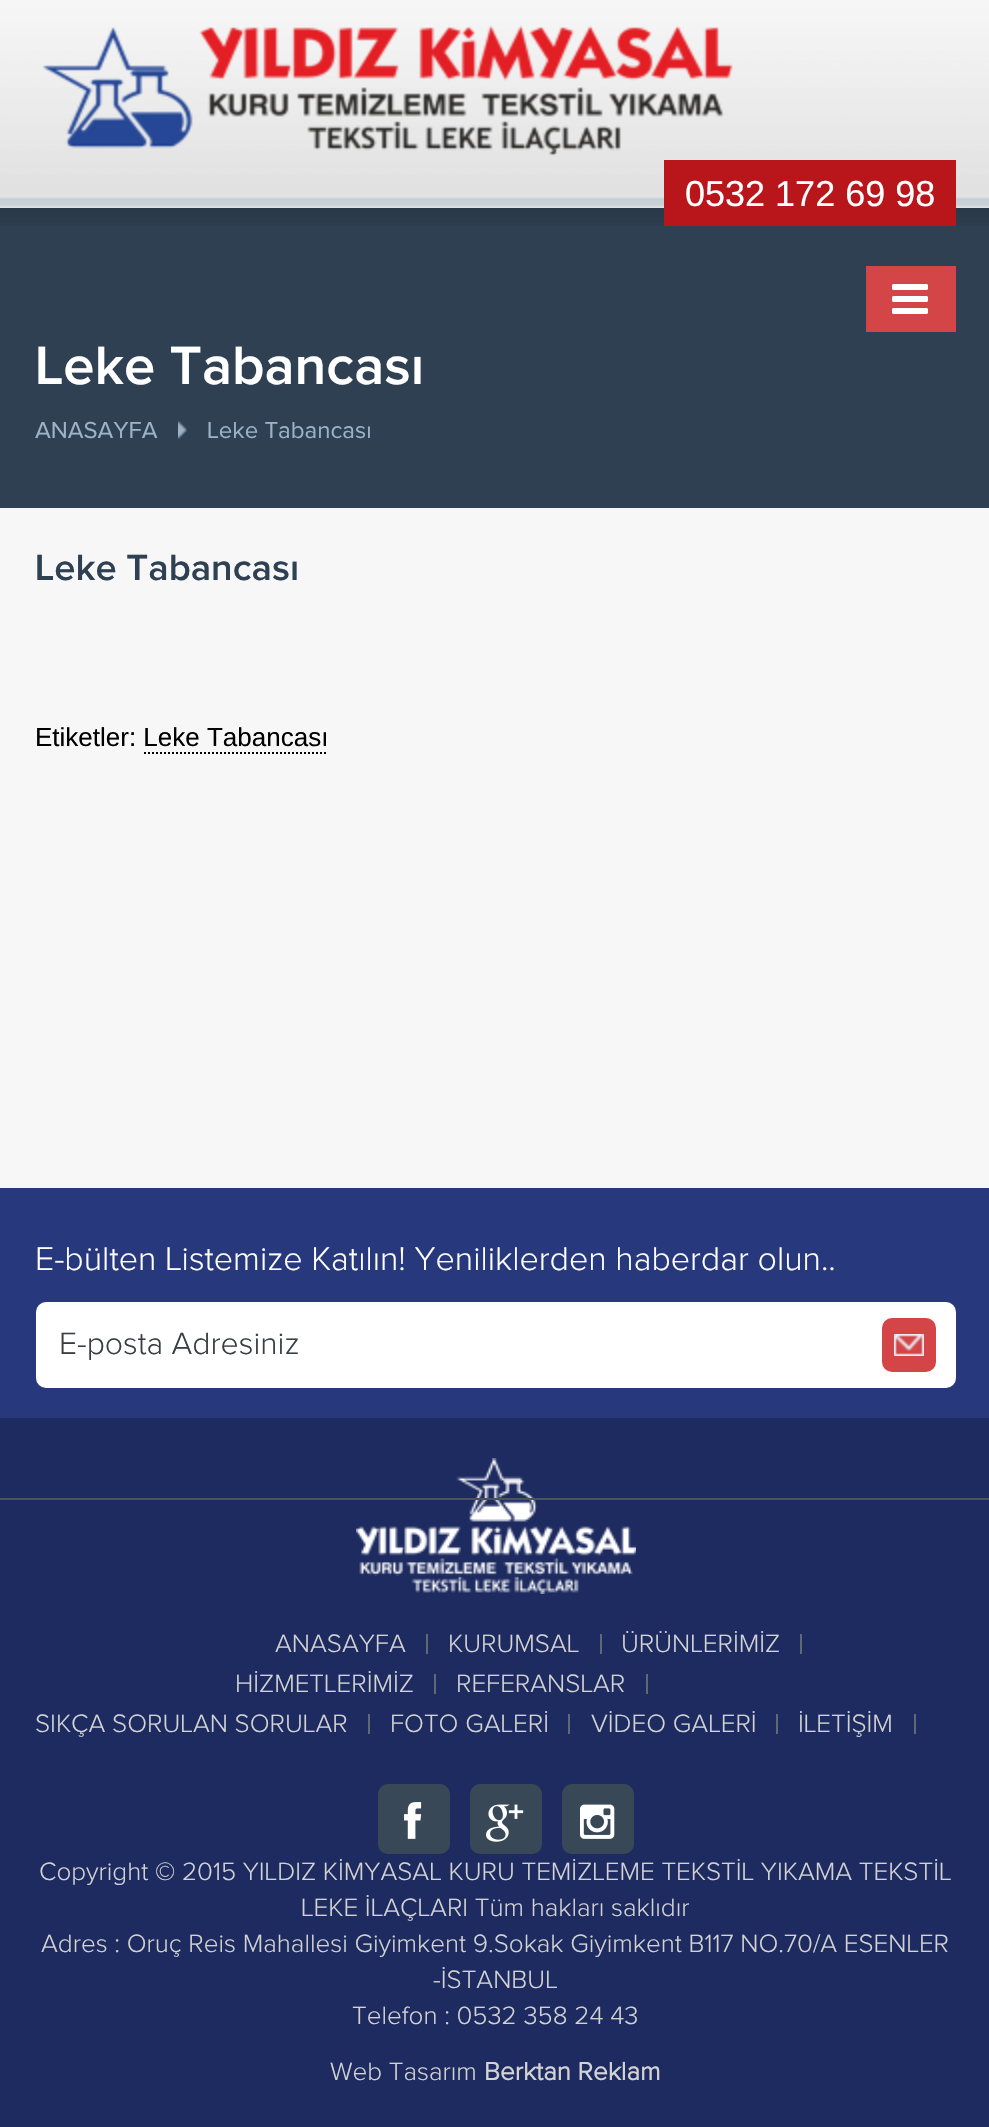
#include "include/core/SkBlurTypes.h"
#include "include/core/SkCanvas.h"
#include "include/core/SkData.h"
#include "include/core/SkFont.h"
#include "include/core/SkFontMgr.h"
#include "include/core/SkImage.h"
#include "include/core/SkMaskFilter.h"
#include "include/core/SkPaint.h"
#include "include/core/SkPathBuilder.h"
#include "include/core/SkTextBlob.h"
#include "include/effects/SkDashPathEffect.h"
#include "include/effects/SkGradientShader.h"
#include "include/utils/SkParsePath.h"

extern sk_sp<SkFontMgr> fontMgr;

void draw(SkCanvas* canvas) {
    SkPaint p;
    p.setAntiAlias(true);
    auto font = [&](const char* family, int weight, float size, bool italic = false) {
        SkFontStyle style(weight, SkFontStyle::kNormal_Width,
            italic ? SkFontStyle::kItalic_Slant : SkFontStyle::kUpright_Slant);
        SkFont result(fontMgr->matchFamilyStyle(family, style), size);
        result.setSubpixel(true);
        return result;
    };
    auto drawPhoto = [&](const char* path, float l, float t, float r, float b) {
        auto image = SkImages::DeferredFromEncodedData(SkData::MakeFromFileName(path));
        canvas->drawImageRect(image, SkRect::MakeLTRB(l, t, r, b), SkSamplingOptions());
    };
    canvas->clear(0xFFFFFFFF);
    p.setColor(0xFF2E4052);
    canvas->drawRect(SkRect::MakeLTRB(0, 208, 989, 508), p);
    drawPhoto("media/1.png", 0, 0, 989, 226);
    drawPhoto("media/2.png", 42, 25, 733, 156);
    p.setColor(0xFFB8161B);
    canvas->drawRect(SkRect::MakeLTRB(664, 160, 956, 226), p);
    auto font1 = font("Liberation Sans", 400, 36);
    p.setColor(0xFFFFFFFF);
    canvas->drawString("0532 172 69 98", 685, 206, font1, p);
    p.setColor(0xFFD34546);
    canvas->drawRect(SkRect::MakeLTRB(866, 266, 956, 332), p);
    drawPhoto("media/3.png", 892, 284, 928, 314);
    auto font2 = font("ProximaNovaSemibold", 600, 56);
    p.setColor(0xFFFFFFFF);
    canvas->drawString("Leke Tabancası", 35, 384, font2, p);
    auto font3 = font("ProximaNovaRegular", 400, 24);
    p.setColor(0xFF9DB1C7);
    canvas->drawString("ANASAYFA", 35, 438, font3, p);
    drawPhoto("media/4.png", 178, 421, 187, 439);
    canvas->drawString("Leke Tabancası", 207, 438, font3, p);
    p.setColor(0xFFF7F7F7);
    canvas->drawRect(SkRect::MakeLTRB(0, 508, 989, 1188), p);
    auto font4 = font("ProximaNovaSemibold", 600, 38);
    p.setColor(0xFF2E4052);
    canvas->drawString("Leke Tabancası", 35, 580, font4, p);
    auto font5 = font("Liberation Sans", 400, 26);
    p.setColor(0xFF000000);
    canvas->drawString("Etiketler: Leke Tabancası", 35, 746, font5, p);
    p.setStyle(SkPaint::kStroke_Style);
    p.setStrokeWidth(2);
    p.setPathEffect(SkDashPathEffect::Make({{2, 2}}, 0));
    canvas->drawPath(SkPathBuilder().moveTo(144, 753).lineTo(328, 753).detach(), p);
    p.setPathEffect(nullptr);
    p.setStyle(SkPaint::kFill_Style);
    p.setColor(0xFF1E2B60);
    canvas->drawRect(SkRect::MakeLTRB(0, 1418, 989, 2127), p);
    p.setColor(0xFF27387C);
    canvas->drawRect(SkRect::MakeLTRB(0, 1188, 989, 1418), p);
    auto font6 = font("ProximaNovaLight", 300, 34);
    p.setColor(0xFFFFFFFF);
    canvas->drawString("E-bülten Listemize Katılın! Yeniliklerden haberdar olun..", 35, 1270, font6, p);
    canvas->drawRoundRect(SkRect::MakeLTRB(36, 1302, 956, 1388), 10, 10, p);
    auto font7 = font("ProximaNovaLight", 300, 32);
    p.setColor(0xFF393E44);
    canvas->drawString("E-posta Adresiniz", 59, 1354, font7, p);
    p.setColor(0xFFD34546);
    canvas->drawRoundRect(SkRect::MakeLTRB(882, 1318, 936, 1372), 10, 10, p);
    drawPhoto("media/5.png", 894, 1334, 924, 1356);
    drawPhoto("media/6.png", 356, 1458, 636, 1594);
    p.setColor(0xFF4A535C);
    canvas->drawRect(SkRect::MakeLTRB(0, 1498, 989, 1500), p);
    p.setColor(0xFF5F6973);
    canvas->drawRect(SkRect::MakeLTRB(426, 1634, 428, 1654), p);
    auto font8 = font("ProximaNovaLight", 300, 26);
    p.setColor(0xFFD3D3D3);
    canvas->drawString("ANASAYFA", 275, 1652, font8, p);
    p.setColor(0xFF5F6973);
    canvas->drawRect(SkRect::MakeLTRB(600, 1634, 602, 1654), p);
    p.setColor(0xFFD3D3D3);
    canvas->drawString("KURUMSAL", 448, 1652, font8, p);
    p.setColor(0xFF5F6973);
    canvas->drawRect(SkRect::MakeLTRB(800, 1634, 802, 1654), p);
    p.setColor(0xFFD3D3D3);
    canvas->drawString("ÜRÜNLERİMİZ", 621, 1652, font8, p);
    p.setColor(0xFF5F6973);
    canvas->drawRect(SkRect::MakeLTRB(434, 1674, 436, 1694), p);
    p.setColor(0xFFD3D3D3);
    canvas->drawString("HİZMETLERİMİZ", 235, 1692, font8, p);
    p.setColor(0xFF5F6973);
    canvas->drawRect(SkRect::MakeLTRB(646, 1674, 648, 1694), p);
    p.setColor(0xFFD3D3D3);
    canvas->drawString("REFERANSLAR", 456, 1692, font8, p);
    p.setColor(0xFF5F6973);
    canvas->drawRect(SkRect::MakeLTRB(368, 1714, 370, 1734), p);
    p.setColor(0xFFD3D3D3);
    canvas->drawString("SIKÇA SORULAN SORULAR", 35, 1732, font8, p);
    p.setColor(0xFF5F6973);
    canvas->drawRect(SkRect::MakeLTRB(568, 1714, 570, 1734), p);
    p.setColor(0xFFD3D3D3);
    canvas->drawString("FOTO GALERİ", 390, 1732, font8, p);
    p.setColor(0xFF5F6973);
    canvas->drawRect(SkRect::MakeLTRB(776, 1714, 778, 1734), p);
    p.setColor(0xFFD3D3D3);
    canvas->drawString("VİDEO GALERİ", 591, 1732, font8, p);
    p.setColor(0xFF5F6973);
    canvas->drawRect(SkRect::MakeLTRB(914, 1714, 916, 1734), p);
    p.setColor(0xFFD3D3D3);
    canvas->drawString("İLETİŞİM", 798, 1732, font8, p);
    p.setColor(0xFF394857);
    canvas->drawRoundRect(SkRect::MakeLTRB(378, 1784, 450, 1854), 10, 10, p);
    drawPhoto("media/7.png", 404, 1802, 422, 1839);
    canvas->drawRoundRect(SkRect::MakeLTRB(470, 1784, 542, 1854), 10, 10, p);
    drawPhoto("media/8.png", 486, 1804, 524, 1842);
    canvas->drawRoundRect(SkRect::MakeLTRB(562, 1784, 634, 1854), 10, 10, p);
    drawPhoto("media/9.png", 580, 1804, 615, 1839);
    p.setColor(0xFFD3D3D3);
    {
        const struct { const char* s; float x, y; } items[] = {
            {"Copyright © 2015 YILDIZ KİMYASAL KURU TEMİZLEME TEKSTİL YIKAMA TEKSTİL", 39, 1880},
            {"LEKE İLAÇLARI Tüm hakları saklıdır", 301, 1916},
            {"Adres : Oruç Reis Mahallesi Giyimkent 9.Sokak Giyimkent B117 NO.70/A ESENLER", 41, 1952},
            {"-İSTANBUL", 433, 1988},
            {"Telefon : 0532 358 24 43", 352, 2024},
            {"Web Tasarım", 330, 2080},
        };
        for (auto [s, x, y] : items) {
            canvas->drawString(s, x, y, font8, p);
        }
    }
    auto font9 = font("ProximaNovaLight", 700, 26);
    canvas->drawString("Berktan Reklam", 484, 2080, font9, p);
}
